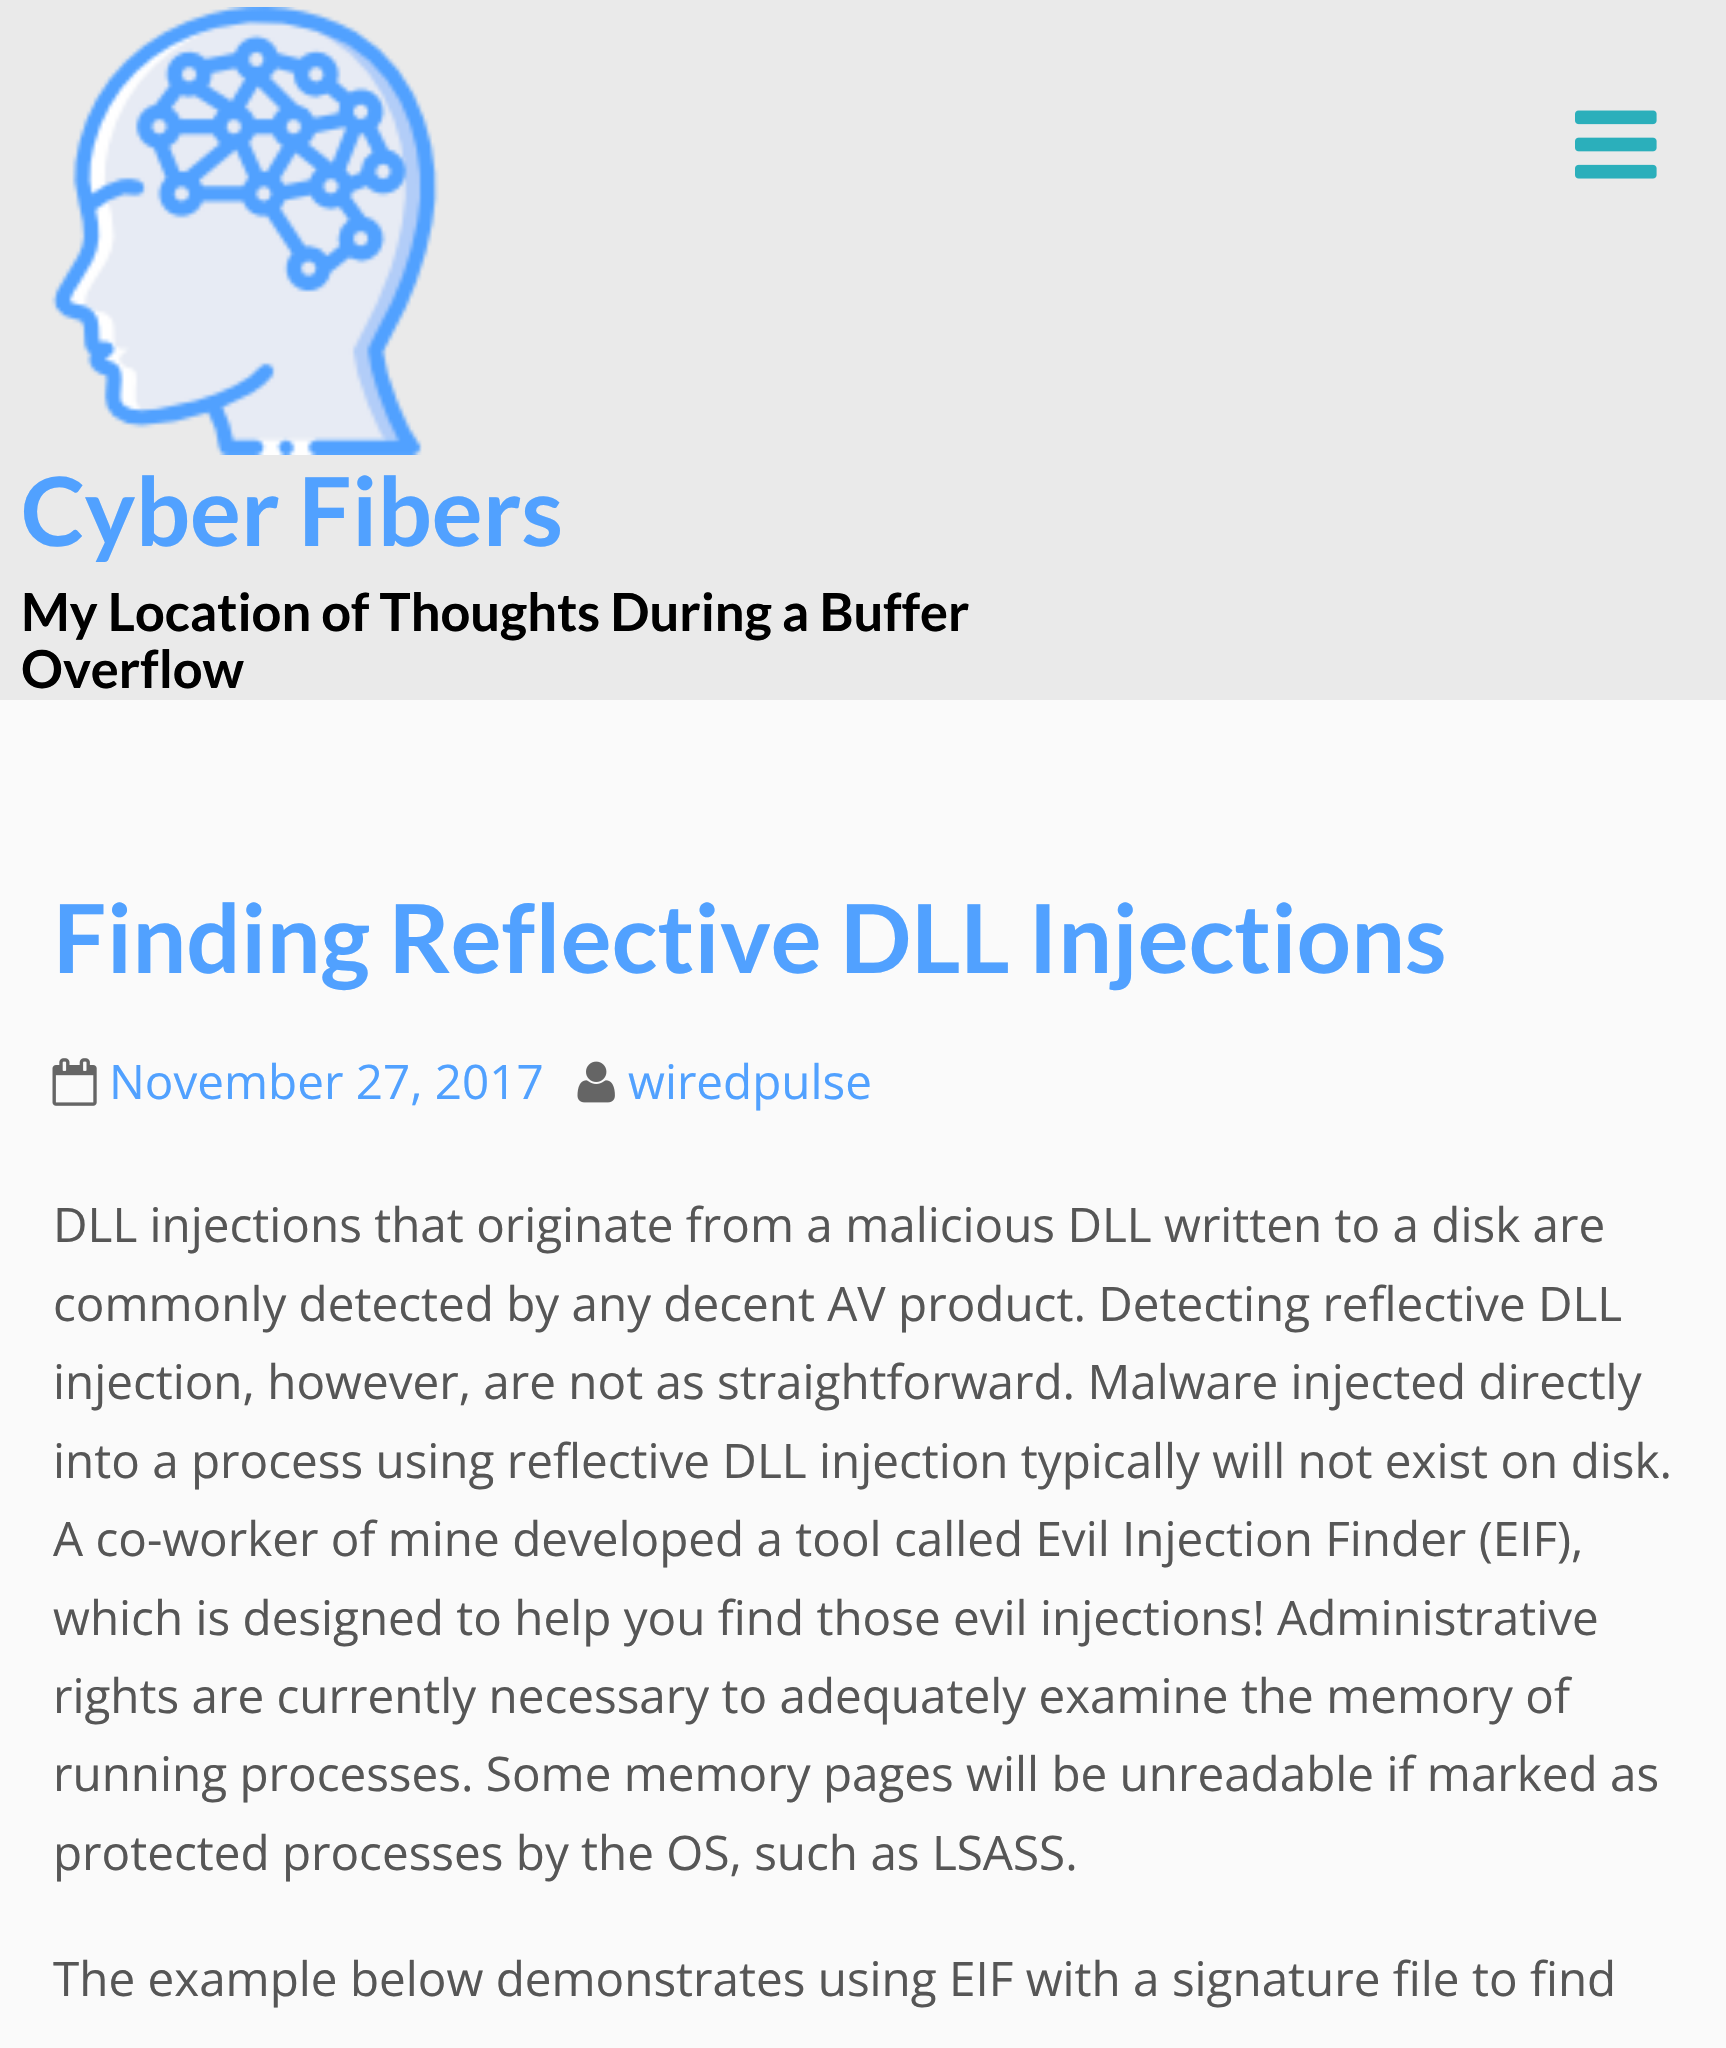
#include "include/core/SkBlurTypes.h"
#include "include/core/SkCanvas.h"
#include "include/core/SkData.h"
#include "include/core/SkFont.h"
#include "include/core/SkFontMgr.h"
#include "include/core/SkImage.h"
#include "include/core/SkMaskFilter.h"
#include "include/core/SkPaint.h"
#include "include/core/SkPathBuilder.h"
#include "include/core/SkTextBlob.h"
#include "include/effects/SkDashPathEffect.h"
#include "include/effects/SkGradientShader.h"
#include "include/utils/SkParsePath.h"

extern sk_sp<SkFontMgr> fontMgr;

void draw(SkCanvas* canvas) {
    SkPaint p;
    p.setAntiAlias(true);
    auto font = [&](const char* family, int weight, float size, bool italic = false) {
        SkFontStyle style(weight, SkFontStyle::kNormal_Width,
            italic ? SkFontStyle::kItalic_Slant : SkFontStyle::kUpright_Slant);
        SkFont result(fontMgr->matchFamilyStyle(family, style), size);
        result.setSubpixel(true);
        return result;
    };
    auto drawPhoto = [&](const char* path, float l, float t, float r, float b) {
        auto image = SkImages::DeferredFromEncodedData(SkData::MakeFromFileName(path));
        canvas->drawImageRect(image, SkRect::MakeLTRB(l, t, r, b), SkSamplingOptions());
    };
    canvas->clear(0xFFEAEAEA);
    drawPhoto("media/1.png", 1575, 110, 1657, 179);
    drawPhoto("media/2.png", 51, 7, 439, 455);
    auto font1 = font("Lato", 700, 95.25f);
    p.setColor(0xFF51A1FF);
    canvas->drawString("Cyber Fibers", 21, 546, font1, p);
    auto font2 = font("Lato", 700, 52.4f);
    p.setColor(0xFF000000);
    canvas->drawString("My Location of Thoughts During a Buffer", 21, 631, font2, p);
    canvas->drawString("Overflow", 21, 688, font2, p);
    p.setColor(0xFFFAFAFA);
    canvas->drawRect(SkRect::MakeLTRB(0, 700, 1726, 2048), p);
    p.setColor(0xFF51A1FF);
    canvas->drawString("Finding Reflective DLL Injections", 53, 973, font1, p);
    drawPhoto("media/3.png", 52, 1058, 97, 1106);
    auto font3 = font("Open Sans", 400, 47.6f);
    canvas->drawString("November 27, 2017", 109, 1099, font3, p);
    drawPhoto("media/4.png", 577, 1061, 615, 1103);
    canvas->drawString("wiredpulse", 628, 1099, font3, p);
    p.setColor(0xFF565656);
    {
        const struct { const char* s; float x, y; } items[] = {
            {"DLL injections that originate from a malicious DLL written to a disk are", 53, 1242},
            {"commonly detected by any decent AV product. Detecting reflective DLL", 53, 1321},
            {"injection, however, are not as straightforward. Malware injected directly", 53, 1399},
            {"into a process using reflective DLL injection typically will not exist on disk.", 53, 1478},
            {"A co-worker of mine developed a tool called Evil Injection Finder (EIF),", 53, 1556},
            {"which is designed to help you find those evil injections! Administrative", 53, 1635},
            {"rights are currently necessary to adequately examine the memory of", 53, 1713},
            {"running processes. Some memory pages will be unreadable if marked as", 53, 1791},
            {"protected processes by the OS, such as LSASS.", 53, 1870},
            {"The example below demonstrates using EIF with a signature file to find", 53, 1996},
        };
        for (auto [s, x, y] : items) {
            canvas->drawString(s, x, y, font3, p);
        }
    }
}
